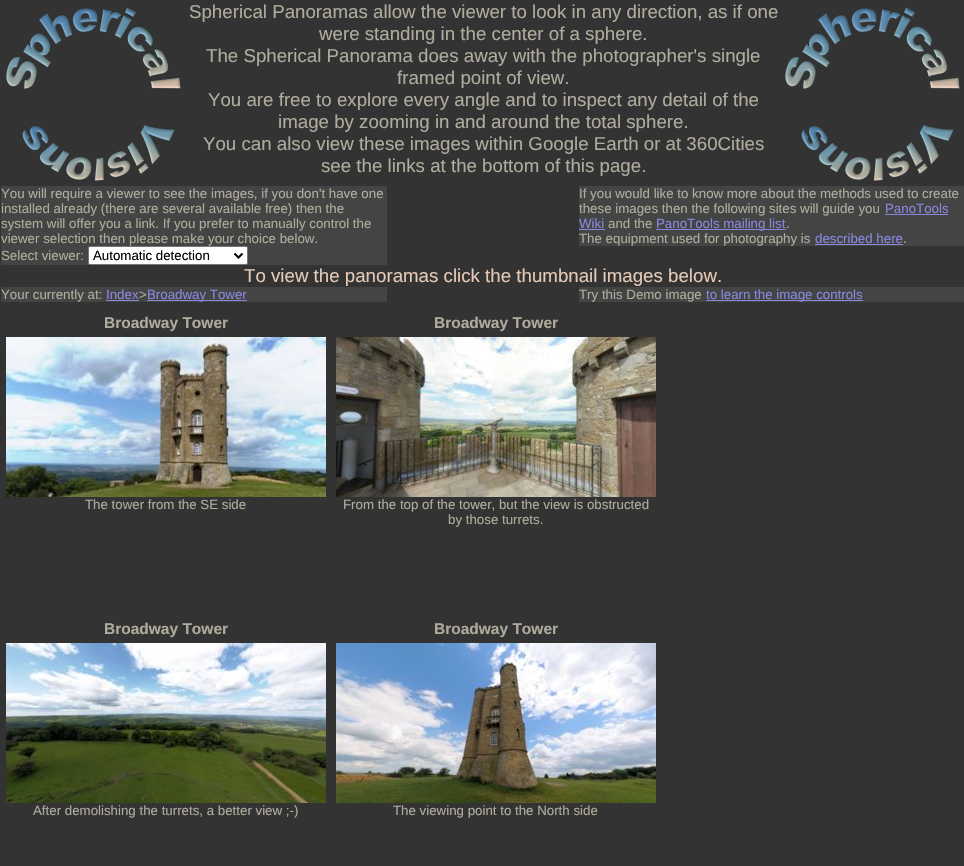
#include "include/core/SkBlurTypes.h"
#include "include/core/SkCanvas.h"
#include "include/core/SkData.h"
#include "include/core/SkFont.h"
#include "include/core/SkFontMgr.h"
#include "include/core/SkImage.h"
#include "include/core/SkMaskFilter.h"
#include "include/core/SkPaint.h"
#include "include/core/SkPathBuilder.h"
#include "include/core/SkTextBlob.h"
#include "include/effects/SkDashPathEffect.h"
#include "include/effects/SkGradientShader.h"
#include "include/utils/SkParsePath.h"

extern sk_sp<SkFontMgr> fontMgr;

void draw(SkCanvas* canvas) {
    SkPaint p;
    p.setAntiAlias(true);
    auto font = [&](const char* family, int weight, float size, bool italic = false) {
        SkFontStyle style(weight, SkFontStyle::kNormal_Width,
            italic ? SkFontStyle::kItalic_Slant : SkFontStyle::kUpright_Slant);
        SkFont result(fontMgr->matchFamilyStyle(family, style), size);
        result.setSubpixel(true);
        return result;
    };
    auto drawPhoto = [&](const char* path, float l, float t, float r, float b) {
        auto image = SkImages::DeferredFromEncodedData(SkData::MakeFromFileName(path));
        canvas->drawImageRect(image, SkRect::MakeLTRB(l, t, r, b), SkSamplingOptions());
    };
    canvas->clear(0xFF333333);
    auto font1 = font("Liberation Sans", 400, 18.7f);
    p.setColor(0xFFAFAC9D);
    {
        const struct { const char* s; float x, y; } items[] = {
            {"Spherical Panoramas allow the viewer to look in any direction, as if one", 189, 18},
            {"were standing in the center of a sphere.", 319, 40},
            {"The Spherical Panorama does away with the photographer's single", 206, 62},
            {"framed point of view.", 397, 84},
            {"You are free to explore every angle and to inspect any detail of the", 208, 106},
            {"image by zooming in and around the total sphere.", 278, 128},
            {"You can also view these images within Google Earth or at 360Cities", 203, 150},
            {"see the links at the bottom of this page.", 321, 172},
        };
        for (auto [s, x, y] : items) {
            canvas->drawString(s, x, y, font1, p);
        }
    }
    p.setColor(0xFF444444);
    canvas->drawRect(SkRect::MakeLTRB(1, 186, 387, 265), p);
    auto font2 = font("Liberation Sans", 400, 13.3f);
    p.setColor(0xFFAFAC9D);
    {
        const struct { const char* s; float x, y; } items[] = {
            {"You will require a viewer to see the images, if you don't have one", 1, 198},
            {"installed already (there are several available free) then the", 1, 213},
            {"system will offer you a link. If you prefer to manually control the", 1, 228},
            {"viewer selection then please make your choice below.", 1, 243},
            {"Select viewer:", 1, 260},
        };
        for (auto [s, x, y] : items) {
            canvas->drawString(s, x, y, font2, p);
        }
    }
    p.setColor(0xFFFFFFFF);
    canvas->drawRoundRect(SkRect::MakeLTRB(88.5f, 246.5f, 247.5f, 264.5f), 1.5f, 1.5f, p);
    p.setStyle(SkPaint::kStroke_Style);
    p.setStrokeWidth(1);
    p.setColor(0xFF767676);
    canvas->drawRoundRect(SkRect::MakeLTRB(88.5f, 246.5f, 247.5f, 264.5f), 1.5f, 1.5f, p);
    p.setStrokeWidth(2);
    p.setColor(0xFF000000);
    canvas->drawPath(SkPathBuilder().moveTo(234.5f, 253.5f).lineTo(238.5f, 257.5f).lineTo(242.5f, 253.5f).detach(), p);
    p.setStyle(SkPaint::kFill_Style);
    canvas->drawString("Automatic detection", 93, 260, font2, p);
    p.setColor(0xFF444444);
    canvas->drawRect(SkRect::MakeLTRB(579, 186, 964, 246), p);
    p.setColor(0xFFAFAC9D);
    canvas->drawString("If you would like to know more about the methods used to create", 579, 198, font2, p);
    canvas->drawString("these images then the following sites will guide you", 579, 213, font2, p);
    p.setColor(0xFF8888DD);
    canvas->drawString("PanoTools", 885, 213, font2, p);
    canvas->drawRect(SkRect::MakeLTRB(885, 214, 948, 215), p);
    canvas->drawString("Wiki", 579, 228, font2, p);
    canvas->drawRect(SkRect::MakeLTRB(579, 229, 605, 230), p);
    p.setColor(0xFFAFAC9D);
    canvas->drawString("and the", 608, 228, font2, p);
    p.setColor(0xFF8888DD);
    canvas->drawRect(SkRect::MakeLTRB(656, 229, 786, 230), p);
    canvas->drawString("PanoTools mailing list", 656, 228, font2, p);
    p.setColor(0xFFAFAC9D);
    canvas->drawString(".", 786, 228, font2, p);
    canvas->drawString("The equipment used for photography is", 579, 243, font2, p);
    p.setColor(0xFF8888DD);
    canvas->drawString("described here", 815, 243, font2, p);
    canvas->drawRect(SkRect::MakeLTRB(815, 244, 903, 245), p);
    p.setColor(0xFFAFAC9D);
    canvas->drawString(".", 903, 243, font2, p);
    p.setColor(0xFFE5C8B5);
    canvas->drawString("To view the panoramas click the thumbnail images below.", 244, 282, font1, p);
    p.setColor(0xFF444444);
    canvas->drawRect(SkRect::MakeLTRB(1, 287, 387, 302), p);
    p.setColor(0xFFAFAC9D);
    canvas->drawString("Your currently at:", 1, 299, font2, p);
    p.setColor(0xFF8888DD);
    canvas->drawString("Index", 106, 299, font2, p);
    canvas->drawRect(SkRect::MakeLTRB(106, 300, 139, 301), p);
    p.setColor(0xFFAFAC9D);
    canvas->drawString(">", 139, 299, font2, p);
    p.setColor(0xFF8888DD);
    canvas->drawRect(SkRect::MakeLTRB(147, 300, 247, 301), p);
    canvas->drawString("Broadway Tower", 147, 299, font2, p);
    p.setColor(0xFF444444);
    canvas->drawRect(SkRect::MakeLTRB(579, 287, 964, 302), p);
    p.setColor(0xFFAFAC9D);
    canvas->drawString("Try this Demo image", 579, 299, font2, p);
    p.setColor(0xFF8888DD);
    canvas->drawRect(SkRect::MakeLTRB(706, 300, 863, 301), p);
    canvas->drawString("to learn the image controls", 706, 299, font2, p);
    auto font3 = font("Liberation Sans", 700, 15.5f);
    p.setColor(0xFFAFAC9D);
    canvas->drawString("Broadway Tower", 104, 328, font3, p);
    drawPhoto("media/1.png", 6, 337, 326, 497);
    canvas->drawString("The tower from the SE side", 85, 509, font2, p);
    canvas->drawString("Broadway Tower", 434, 328, font3, p);
    drawPhoto("media/2.png", 336, 337, 656, 497);
    canvas->drawString("From the top of the tower, but the view is obstructed", 343, 509, font2, p);
    canvas->drawString("by those turrets.", 448, 524, font2, p);
    canvas->drawString("Broadway Tower", 104, 634, font3, p);
    drawPhoto("media/3.png", 6, 643, 326, 803);
    canvas->drawString("After demolishing the turrets, a better view ;-)", 33, 815, font2, p);
    canvas->drawString("Broadway Tower", 434, 634, font3, p);
    drawPhoto("media/4.png", 336, 643, 656, 803);
    canvas->drawString("The viewing point to the North side", 393, 815, font2, p);
    drawPhoto("media/5.png", 6, 7, 181, 181);
    drawPhoto("media/5.png", 785, 7, 960, 181);
}
